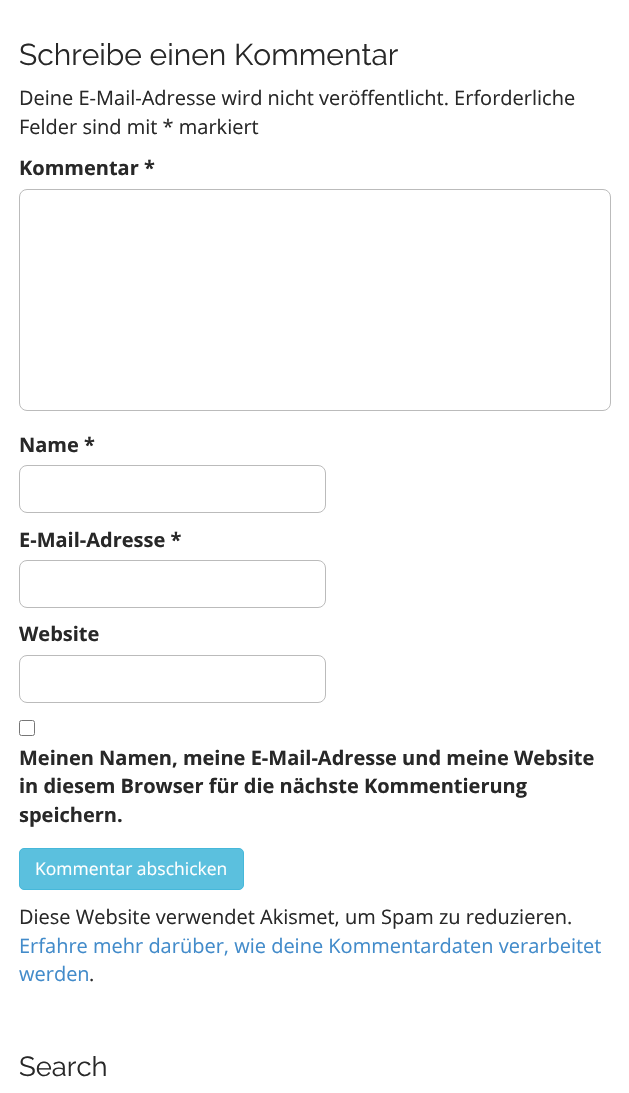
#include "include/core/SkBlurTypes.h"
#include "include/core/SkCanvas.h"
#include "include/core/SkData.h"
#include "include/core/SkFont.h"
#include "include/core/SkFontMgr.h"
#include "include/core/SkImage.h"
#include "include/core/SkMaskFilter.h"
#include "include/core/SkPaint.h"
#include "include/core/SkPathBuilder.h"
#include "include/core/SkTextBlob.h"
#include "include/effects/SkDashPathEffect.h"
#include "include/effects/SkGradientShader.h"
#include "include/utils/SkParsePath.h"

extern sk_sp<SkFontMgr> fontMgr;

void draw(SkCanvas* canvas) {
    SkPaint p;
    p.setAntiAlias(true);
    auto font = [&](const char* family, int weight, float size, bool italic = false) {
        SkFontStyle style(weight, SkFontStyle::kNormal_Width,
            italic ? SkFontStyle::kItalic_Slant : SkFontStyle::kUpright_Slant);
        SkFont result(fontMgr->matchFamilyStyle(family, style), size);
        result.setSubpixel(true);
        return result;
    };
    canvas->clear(0xFFFFFFFF);
    auto font1 = font("Raleway", 100, 30);
    p.setColor(0xFF282828);
    canvas->drawString("Schreibe einen Kommentar", 19, 65, font1, p);
    auto font2 = font("Open Sans", 400, 20);
    canvas->drawString("Deine E-Mail-Adresse wird nicht veröffentlicht. Erforderliche", 19, 105, font2, p);
    canvas->drawString("Felder sind mit * markiert", 19, 134, font2, p);
    auto font3 = font("Open Sans", 700, 20);
    canvas->drawString("Kommentar *", 19, 175, font3, p);
    p.setStyle(SkPaint::kStroke_Style);
    p.setStrokeWidth(1);
    p.setColor(0xFFBBBBBB);
    canvas->drawRoundRect(SkRect::MakeLTRB(19.5f, 189.5f, 610.5f, 410.5f), 7.5f, 7.5f, p);
    p.setStyle(SkPaint::kFill_Style);
    p.setColor(0xFF282828);
    canvas->drawString("Name *", 19, 452, font3, p);
    p.setStyle(SkPaint::kStroke_Style);
    p.setColor(0xFFBBBBBB);
    canvas->drawRoundRect(SkRect::MakeLTRB(19.5f, 465.5f, 325.5f, 512.5f), 7.5f, 7.5f, p);
    p.setStyle(SkPaint::kFill_Style);
    p.setColor(0xFF282828);
    canvas->drawString("E-Mail-Adresse *", 19, 547, font3, p);
    p.setStyle(SkPaint::kStroke_Style);
    p.setColor(0xFFBBBBBB);
    canvas->drawRoundRect(SkRect::MakeLTRB(19.5f, 560.5f, 325.5f, 607.5f), 7.5f, 7.5f, p);
    p.setStyle(SkPaint::kFill_Style);
    p.setColor(0xFF282828);
    canvas->drawString("Website", 19, 641, font3, p);
    p.setStyle(SkPaint::kStroke_Style);
    p.setColor(0xFFBBBBBB);
    canvas->drawRoundRect(SkRect::MakeLTRB(19.5f, 655.5f, 325.5f, 702.5f), 7.5f, 7.5f, p);
    p.setColor(0xFF767676);
    canvas->drawRoundRect(SkRect::MakeLTRB(19.5f, 720.5f, 34.5f, 735.5f), 2, 2, p);
    p.setStyle(SkPaint::kFill_Style);
    p.setColor(0xFF282828);
    {
        const struct { const char* s; float x, y; } items[] = {
            {"Meinen Namen, meine E-Mail-Adresse und meine Website", 19, 765},
            {"in diesem Browser für die nächste Kommentierung", 19, 793},
            {"speichern.", 19, 822},
        };
        for (auto [s, x, y] : items) {
            canvas->drawString(s, x, y, font3, p);
        }
    }
    p.setColor(0xFF5BC0DE);
    canvas->drawRoundRect(SkRect::MakeLTRB(19.5f, 848.5f, 243.5f, 889.5f), 4.5f, 4.5f, p);
    p.setStyle(SkPaint::kStroke_Style);
    p.setColor(0xFF46B8DA);
    canvas->drawRoundRect(SkRect::MakeLTRB(19.5f, 848.5f, 243.5f, 889.5f), 4.5f, 4.5f, p);
    auto font4 = font("Open Sans", 400, 17.5f);
    p.setStyle(SkPaint::kFill_Style);
    p.setColor(0xFFFFFFFF);
    canvas->drawString("Kommentar abschicken", 35, 875, font4, p);
    p.setColor(0xFF282828);
    canvas->drawString("Diese Website verwendet Akismet, um Spam zu reduzieren.", 19, 924, font2, p);
    p.setColor(0xFF428BCA);
    canvas->drawString("Erfahre mehr darüber, wie deine Kommentardaten verarbeitet", 19, 953, font2, p);
    canvas->drawString("werden", 19, 981, font2, p);
    p.setColor(0xFF282828);
    canvas->drawString(".", 89, 981, font2, p);
    auto font5 = font("Raleway", 100, 27.5f);
    canvas->drawString("Search", 19, 1076, font5, p);
}
